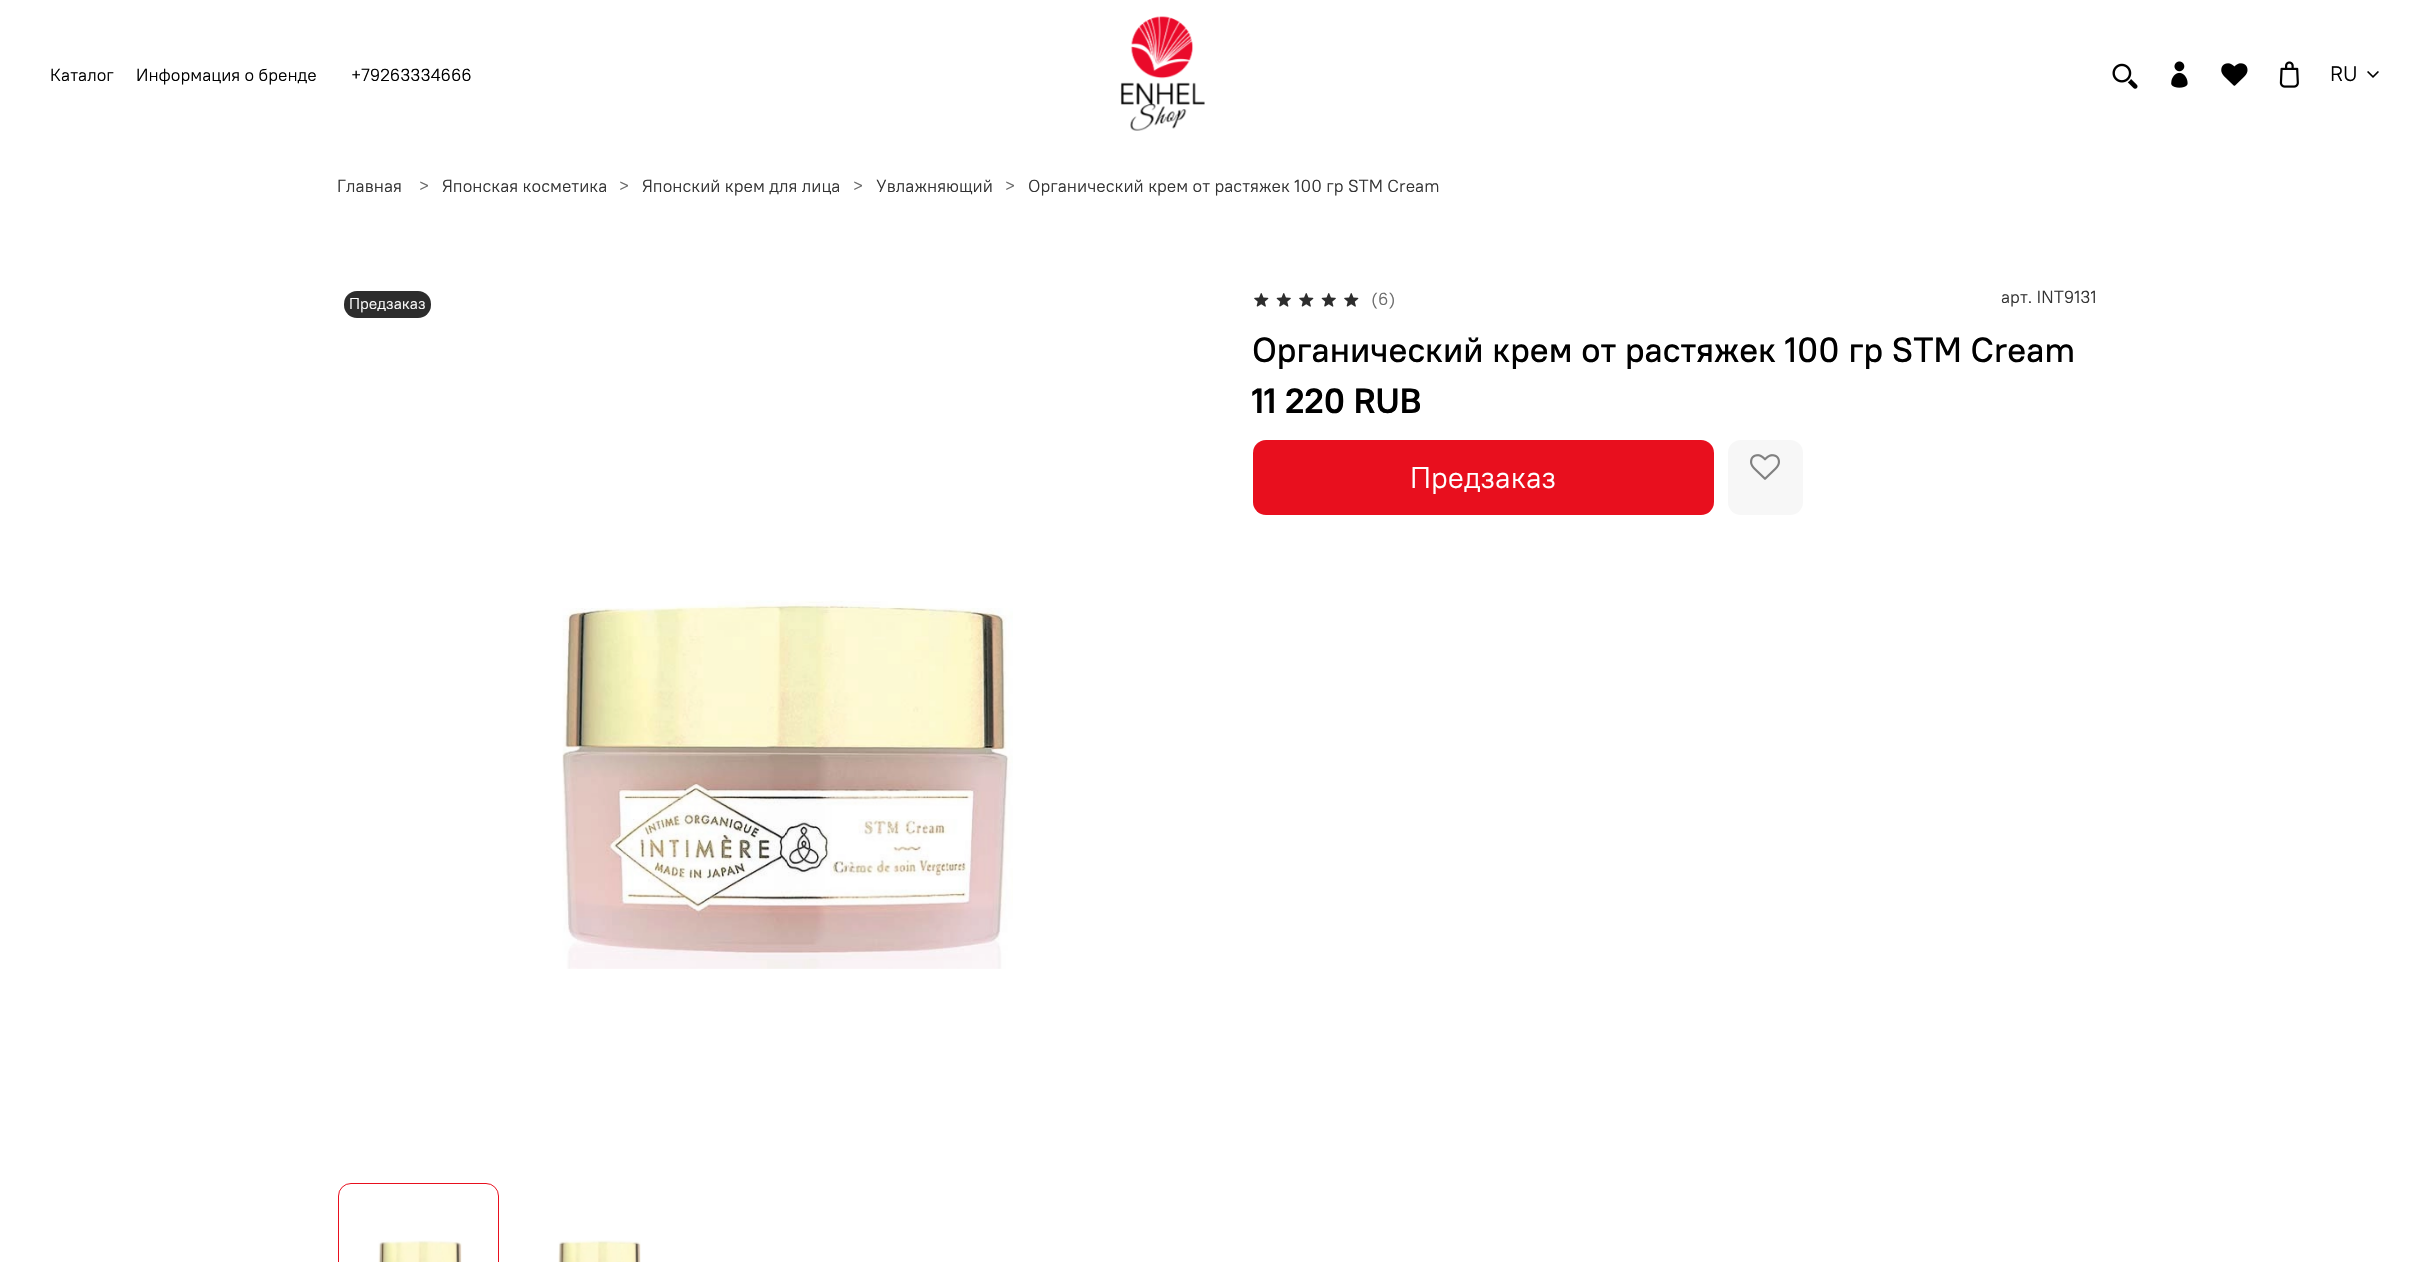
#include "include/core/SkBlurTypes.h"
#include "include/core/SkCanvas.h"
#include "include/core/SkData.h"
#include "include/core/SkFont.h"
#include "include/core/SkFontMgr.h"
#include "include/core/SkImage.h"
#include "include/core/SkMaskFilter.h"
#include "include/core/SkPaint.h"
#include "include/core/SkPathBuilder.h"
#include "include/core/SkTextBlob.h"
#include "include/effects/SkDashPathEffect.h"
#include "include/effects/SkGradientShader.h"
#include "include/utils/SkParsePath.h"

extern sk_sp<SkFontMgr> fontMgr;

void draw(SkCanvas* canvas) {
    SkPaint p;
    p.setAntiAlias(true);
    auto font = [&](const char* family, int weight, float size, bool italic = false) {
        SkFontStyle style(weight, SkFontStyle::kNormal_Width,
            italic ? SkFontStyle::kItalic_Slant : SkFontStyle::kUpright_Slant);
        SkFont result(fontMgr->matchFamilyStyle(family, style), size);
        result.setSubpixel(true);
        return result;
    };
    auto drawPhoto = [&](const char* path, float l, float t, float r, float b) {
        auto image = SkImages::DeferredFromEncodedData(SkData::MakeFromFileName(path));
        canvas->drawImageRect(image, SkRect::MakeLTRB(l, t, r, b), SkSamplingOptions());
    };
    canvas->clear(0xFFFFFFFF);
    auto font1 = font("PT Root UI", 400, 17.5f);
    p.setColor(0xFF000000);
    {
        const struct { const char* s; float x, y; } items[] = {
            {"Каталог", 50, 81},
            {"Информация о бренде", 136, 81},
            {"+79263334666", 351, 81},
        };
        for (auto [s, x, y] : items) {
            canvas->drawString(s, x, y, font1, p);
        }
    }
    drawPhoto("media/1.png", 1120, 16, 1205, 131);
    drawPhoto("media/2.png", 2112, 63, 2138, 89);
    drawPhoto("media/3.png", 2171, 61, 2188, 88);
    drawPhoto("media/4.png", 2221, 63, 2248, 86);
    drawPhoto("media/5.png", 2279, 61, 2299, 88);
    auto font2 = font("PT Root UI", 400, 21);
    canvas->drawString("RU", 2330, 81, font2, p);
    drawPhoto("media/6.png", 2367, 71, 2379, 78);
    p.setColor(0xFF333333);
    canvas->drawString("Главная", 337, 192, font1, p);
    p.setColor(0xFF6B6B6B);
    canvas->drawString(">", 419, 192, font1, p);
    p.setColor(0xFF333333);
    canvas->drawString("Японская косметика", 442, 192, font1, p);
    p.setColor(0xFF6B6B6B);
    canvas->drawString(">", 619, 192, font1, p);
    p.setColor(0xFF333333);
    canvas->drawString("Японский крем для лица", 642, 192, font1, p);
    p.setColor(0xFF6B6B6B);
    canvas->drawString(">", 853, 192, font1, p);
    p.setColor(0xFF333333);
    canvas->drawString("Увлажняющий", 876, 192, font1, p);
    p.setColor(0xFF6B6B6B);
    canvas->drawString(">", 1005, 192, font1, p);
    p.setColor(0xFF333333);
    canvas->drawString("Органический крем от растяжек 100 гр STM Cream", 1028, 192, font1, p);
    p.setColor(0xFF2D2D2D);
    canvas->drawRoundRect(SkRect::MakeLTRB(344, 291, 431, 318), 13, 13, p);
    auto font3 = font("PT Root UI", 400, 15.75f);
    p.setColor(0xFFFFFFFF);
    canvas->drawString("Предзаказ", 349, 309, font3, p);
    drawPhoto("media/7.png", 562, 600, 1013, 969);
    drawPhoto("media/8.png", 378, 1240, 462, 1262);
    p.setStyle(SkPaint::kStroke_Style);
    p.setStrokeWidth(1);
    p.setColor(0xFFE80F1E);
    canvas->drawRoundRect(SkRect::MakeLTRB(338.5f, 1183.5f, 498.5f, 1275.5f), 12.5f, 12.5f, p);
    drawPhoto("media/9.png", 558, 1240, 641, 1262);
    drawPhoto("media/10.png", 1254, 293, 1269, 307);
    drawPhoto("media/11.png", 1276, 293, 1291, 307);
    drawPhoto("media/10.png", 1299, 293, 1314, 307);
    drawPhoto("media/11.png", 1321, 293, 1336, 307);
    drawPhoto("media/10.png", 1344, 293, 1359, 307);
    p.setStyle(SkPaint::kFill_Style);
    p.setColor(0xFF6B6B6B);
    canvas->drawString("(6)", 1371, 305, font1, p);
    p.setColor(0xFF333333);
    canvas->drawString("арт. INT9131", 2001, 303, font1, p);
    auto font4 = font("PT Root UI", 500, 35);
    p.setColor(0xFF000000);
    canvas->drawString("Органический крем от растяжек 100 гр STM Cream", 1252, 362, font4, p);
    auto font5 = font("PT Root UI", 700, 35);
    canvas->drawString("11 220 RUB", 1252, 413, font5, p);
    p.setColor(0xFFE80F1E);
    canvas->drawRoundRect(SkRect::MakeLTRB(1253, 440, 1714, 515), 13, 13, p);
    auto font6 = font("PT Root UI", 400, 30);
    p.setColor(0xFFFFFFFF);
    canvas->drawString("Предзаказ", 1410, 488, font6, p);
    p.setColor(0xFFF7F7F7);
    canvas->drawRoundRect(SkRect::MakeLTRB(1728, 440, 1803, 515), 13, 13, p);
    drawPhoto("media/12.png", 1750, 454, 1780, 480);
}
